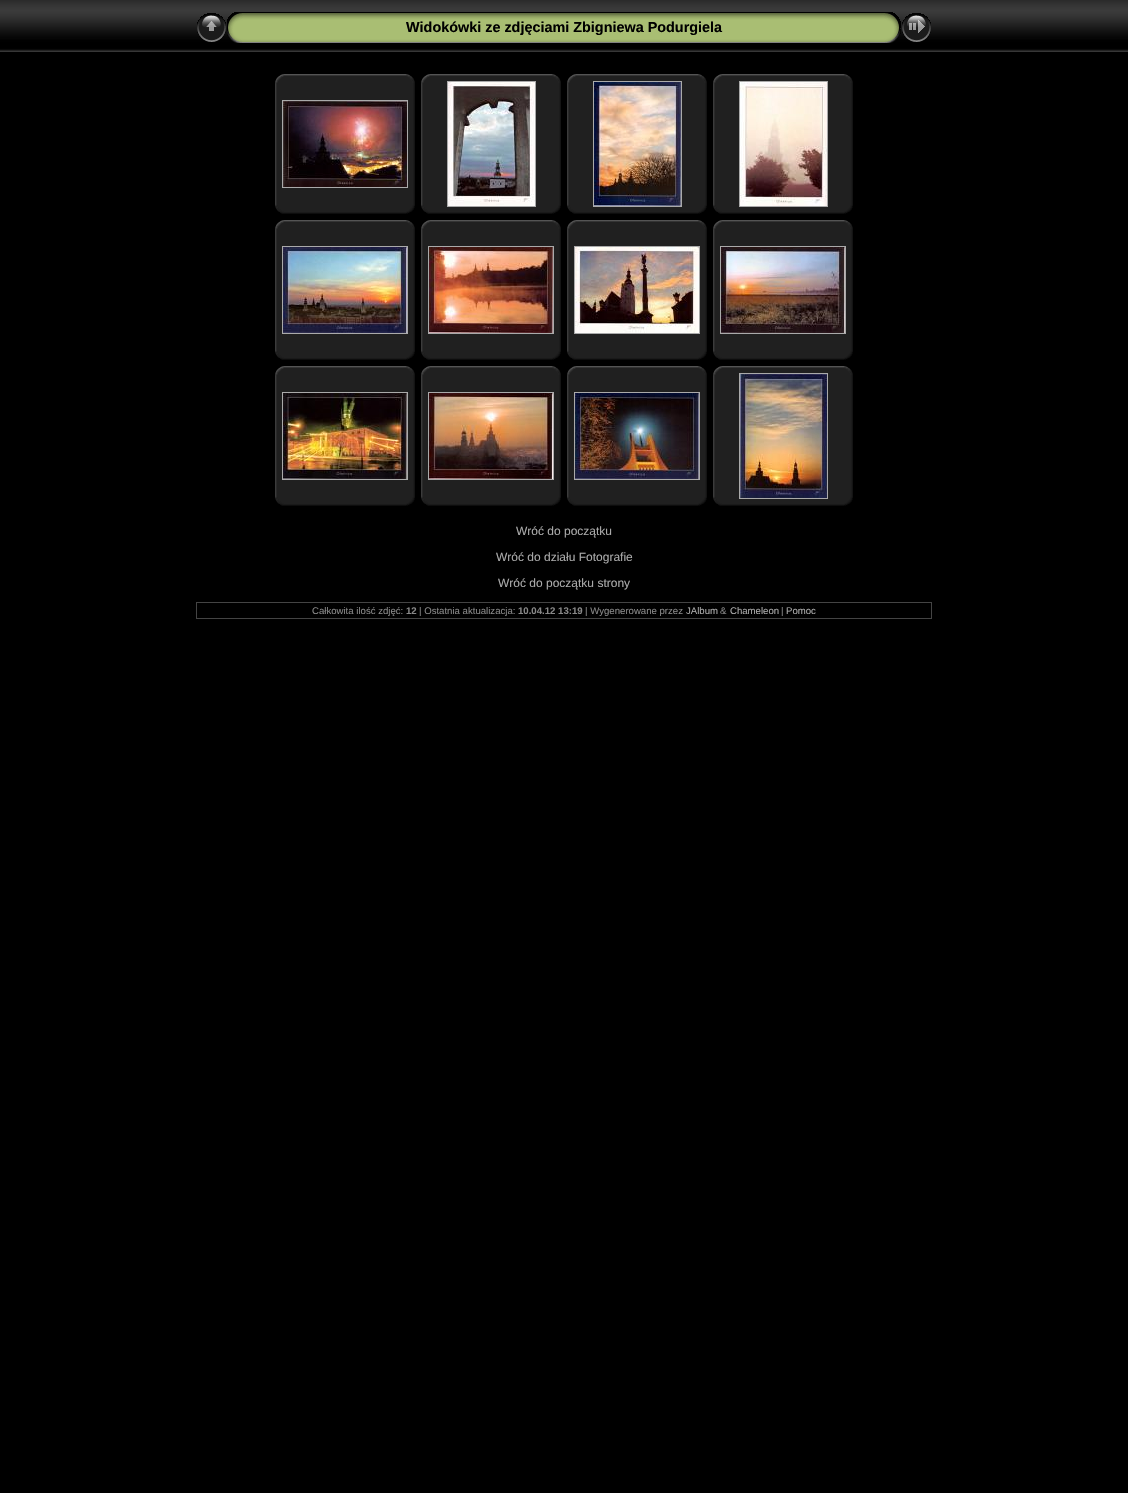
#include "include/core/SkBlurTypes.h"
#include "include/core/SkCanvas.h"
#include "include/core/SkData.h"
#include "include/core/SkFont.h"
#include "include/core/SkFontMgr.h"
#include "include/core/SkImage.h"
#include "include/core/SkMaskFilter.h"
#include "include/core/SkPaint.h"
#include "include/core/SkPathBuilder.h"
#include "include/core/SkTextBlob.h"
#include "include/effects/SkDashPathEffect.h"
#include "include/effects/SkGradientShader.h"
#include "include/utils/SkParsePath.h"

extern sk_sp<SkFontMgr> fontMgr;

void draw(SkCanvas* canvas) {
    SkPaint p;
    p.setAntiAlias(true);
    auto font = [&](const char* family, int weight, float size, bool italic = false) {
        SkFontStyle style(weight, SkFontStyle::kNormal_Width,
            italic ? SkFontStyle::kItalic_Slant : SkFontStyle::kUpright_Slant);
        SkFont result(fontMgr->matchFamilyStyle(family, style), size);
        result.setSubpixel(true);
        return result;
    };
    auto drawPhoto = [&](const char* path, float l, float t, float r, float b) {
        auto image = SkImages::DeferredFromEncodedData(SkData::MakeFromFileName(path));
        canvas->drawImageRect(image, SkRect::MakeLTRB(l, t, r, b), SkSamplingOptions());
    };
    canvas->clear(0xFF000000);
    drawPhoto("media/1.png", 0, 0, 1128, 52);
    drawPhoto("media/2.png", 197, 13, 226, 42);
    drawPhoto("media/3.png", 227, 12, 247, 43);
    drawPhoto("media/4.png", 247, 12, 881, 43);
    auto font1 = font("Liberation Sans", 700, 14.4f);
    p.setColor(0xFF000000);
    canvas->drawString("Widokówki ze zdjęciami Zbigniewa Podurgiela", 406, 32, font1, p);
    drawPhoto("media/5.png", 881, 12, 901, 43);
    drawPhoto("media/6.png", 902, 13, 931, 42);
    drawPhoto("media/7.png", 275, 74, 415, 214);
    p.setStyle(SkPaint::kStroke_Style);
    p.setStrokeWidth(1);
    p.setColor(0xFFAAAAAA);
    canvas->drawRect(SkRect::MakeLTRB(282.5f, 100.5f, 407.5f, 187.5f), p);
    drawPhoto("media/8.png", 283, 101, 407, 187);
    drawPhoto("media/7.png", 421, 74, 561, 214);
    canvas->drawRect(SkRect::MakeLTRB(447.5f, 81.5f, 535.5f, 206.5f), p);
    drawPhoto("media/9.png", 448, 82, 535, 206);
    drawPhoto("media/7.png", 567, 74, 707, 214);
    canvas->drawRect(SkRect::MakeLTRB(593.5f, 81.5f, 681.5f, 206.5f), p);
    drawPhoto("media/10.png", 594, 82, 681, 206);
    drawPhoto("media/7.png", 713, 74, 853, 214);
    canvas->drawRect(SkRect::MakeLTRB(739.5f, 81.5f, 827.5f, 206.5f), p);
    drawPhoto("media/11.png", 740, 82, 827, 206);
    drawPhoto("media/7.png", 275, 220, 415, 360);
    canvas->drawRect(SkRect::MakeLTRB(282.5f, 246.5f, 407.5f, 333.5f), p);
    drawPhoto("media/12.png", 283, 247, 407, 333);
    drawPhoto("media/7.png", 421, 220, 561, 360);
    canvas->drawRect(SkRect::MakeLTRB(428.5f, 246.5f, 553.5f, 333.5f), p);
    drawPhoto("media/13.png", 429, 247, 553, 333);
    drawPhoto("media/7.png", 567, 220, 707, 360);
    canvas->drawRect(SkRect::MakeLTRB(574.5f, 246.5f, 699.5f, 333.5f), p);
    drawPhoto("media/14.png", 575, 247, 699, 333);
    drawPhoto("media/7.png", 713, 220, 853, 360);
    canvas->drawRect(SkRect::MakeLTRB(720.5f, 246.5f, 845.5f, 333.5f), p);
    drawPhoto("media/15.png", 721, 247, 845, 333);
    drawPhoto("media/7.png", 275, 366, 415, 506);
    canvas->drawRect(SkRect::MakeLTRB(282.5f, 392.5f, 407.5f, 479.5f), p);
    drawPhoto("media/16.png", 283, 393, 407, 479);
    drawPhoto("media/7.png", 421, 366, 561, 506);
    canvas->drawRect(SkRect::MakeLTRB(428.5f, 392.5f, 553.5f, 479.5f), p);
    drawPhoto("media/17.png", 429, 393, 553, 479);
    drawPhoto("media/7.png", 567, 366, 707, 506);
    canvas->drawRect(SkRect::MakeLTRB(574.5f, 392.5f, 699.5f, 479.5f), p);
    drawPhoto("media/18.png", 575, 393, 699, 479);
    drawPhoto("media/7.png", 713, 366, 853, 506);
    canvas->drawRect(SkRect::MakeLTRB(739.5f, 373.5f, 827.5f, 498.5f), p);
    drawPhoto("media/19.png", 740, 374, 827, 498);
    auto font2 = font("Liberation Sans", 400, 12);
    p.setStyle(SkPaint::kFill_Style);
    {
        const struct { const char* s; float x, y; } items[] = {
            {"Wróć do początku", 516, 535},
            {"Wróć do działu Fotografie", 496, 561},
            {"Wróć do początku strony", 498, 587},
        };
        for (auto [s, x, y] : items) {
            canvas->drawString(s, x, y, font2, p);
        }
    }
    {
        const struct { float l, t, r, b; SkColor color; } items[] = {
            {196, 602, 932, 603, 0xFF444444},
            {931, 602, 932, 619, 0xFF444444},
            {196, 618, 932, 619, 0xFF444444},
            {196, 602, 197, 619, 0xFF444444},
        };
        for (auto [l, t, r, b, color] : items) {
            p.setColor(color);
            canvas->drawRect(SkRect::MakeLTRB(l, t, r, b), p);
        }
    }
    auto font3 = font("Liberation Sans", 400, 9.6f);
    p.setColor(0xFF888888);
    canvas->drawString("Całkowita ilość zdjęć:", 312, 614, font3, p);
    auto font4 = font("Liberation Sans", 700, 9.6f);
    canvas->drawString("12", 406, 614, font4, p);
    canvas->drawString("| Ostatnia aktualizacja:", 419, 614, font3, p);
    canvas->drawString("10.04.12 13:19", 518, 614, font4, p);
    canvas->drawString("| Wygenerowane przez", 585, 614, font3, p);
    p.setColor(0xFFAAAAAA);
    canvas->drawString("JAlbum", 686, 614, font3, p);
    p.setColor(0xFF888888);
    canvas->drawString("&", 720, 614, font3, p);
    p.setColor(0xFFAAAAAA);
    canvas->drawString("Chameleon", 730, 614, font3, p);
    p.setColor(0xFF888888);
    canvas->drawString("|", 781, 614, font3, p);
    p.setColor(0xFFAAAAAA);
    canvas->drawString("Pomoc", 786, 614, font3, p);
}
